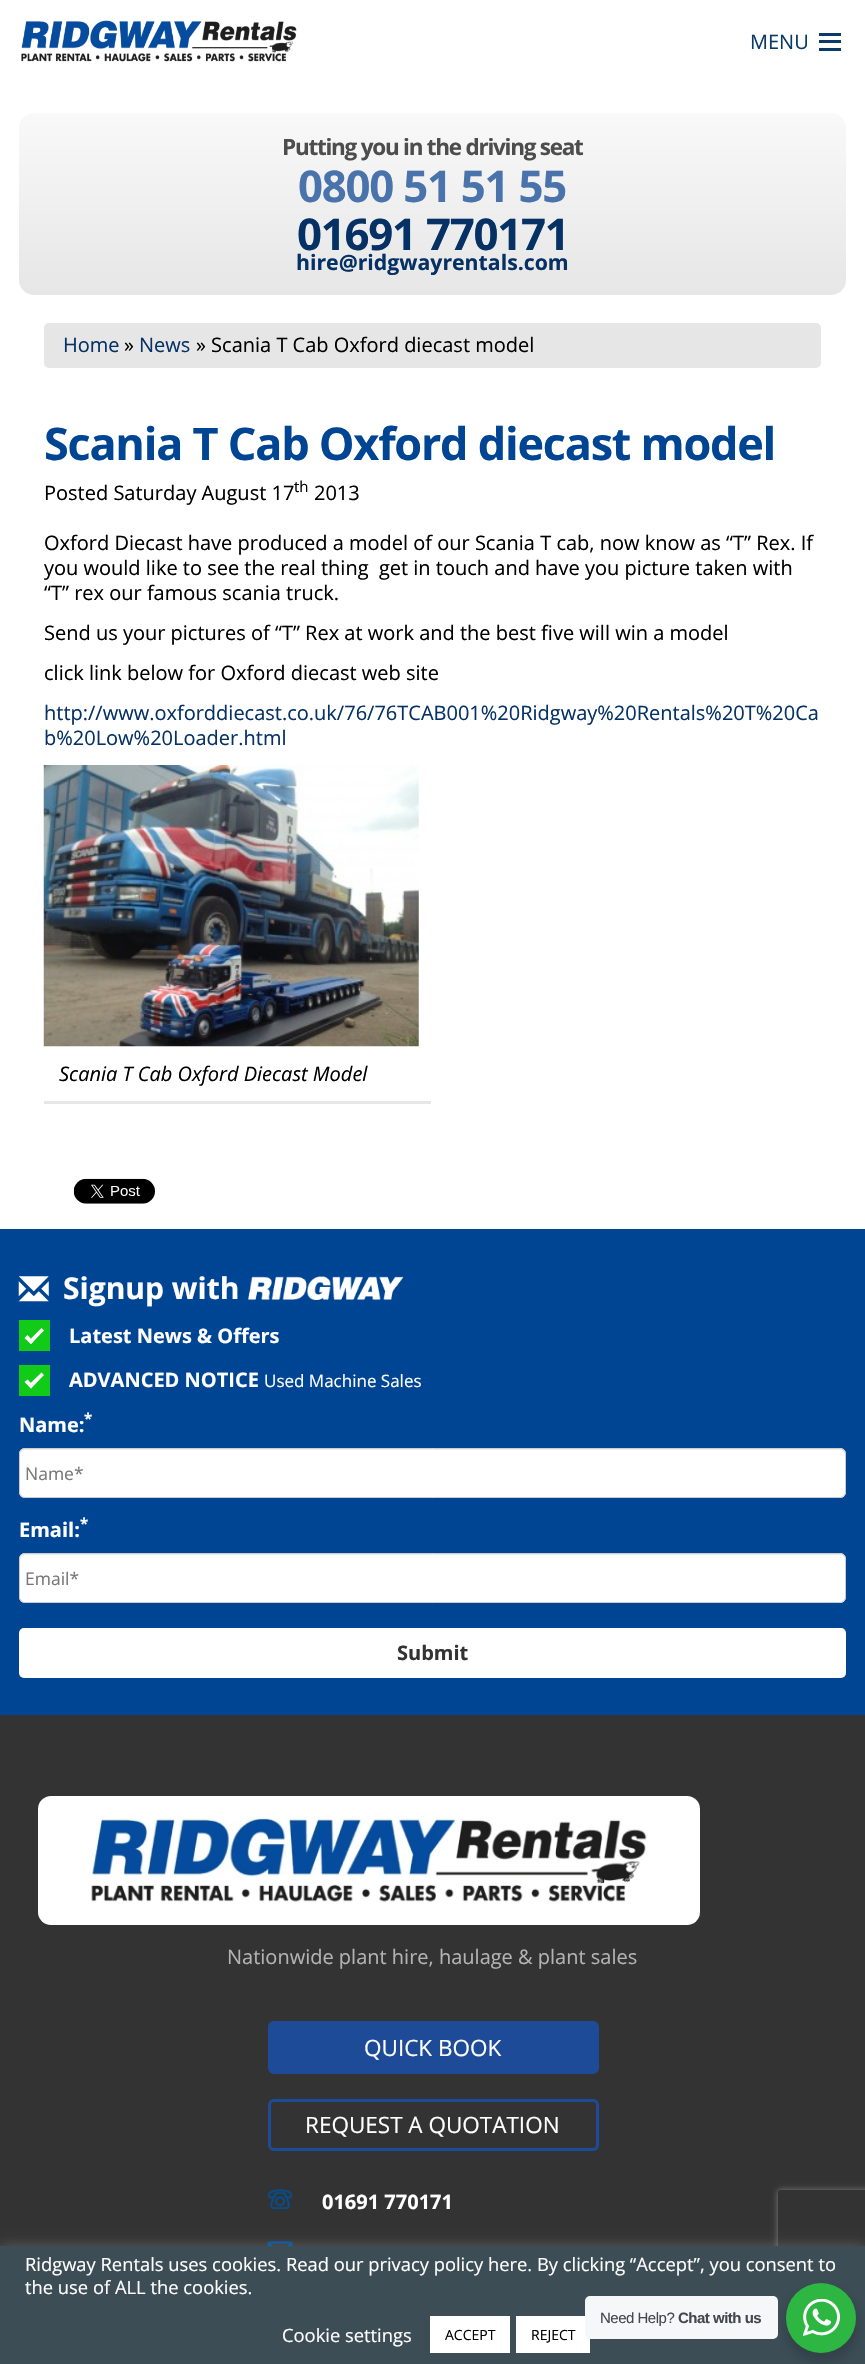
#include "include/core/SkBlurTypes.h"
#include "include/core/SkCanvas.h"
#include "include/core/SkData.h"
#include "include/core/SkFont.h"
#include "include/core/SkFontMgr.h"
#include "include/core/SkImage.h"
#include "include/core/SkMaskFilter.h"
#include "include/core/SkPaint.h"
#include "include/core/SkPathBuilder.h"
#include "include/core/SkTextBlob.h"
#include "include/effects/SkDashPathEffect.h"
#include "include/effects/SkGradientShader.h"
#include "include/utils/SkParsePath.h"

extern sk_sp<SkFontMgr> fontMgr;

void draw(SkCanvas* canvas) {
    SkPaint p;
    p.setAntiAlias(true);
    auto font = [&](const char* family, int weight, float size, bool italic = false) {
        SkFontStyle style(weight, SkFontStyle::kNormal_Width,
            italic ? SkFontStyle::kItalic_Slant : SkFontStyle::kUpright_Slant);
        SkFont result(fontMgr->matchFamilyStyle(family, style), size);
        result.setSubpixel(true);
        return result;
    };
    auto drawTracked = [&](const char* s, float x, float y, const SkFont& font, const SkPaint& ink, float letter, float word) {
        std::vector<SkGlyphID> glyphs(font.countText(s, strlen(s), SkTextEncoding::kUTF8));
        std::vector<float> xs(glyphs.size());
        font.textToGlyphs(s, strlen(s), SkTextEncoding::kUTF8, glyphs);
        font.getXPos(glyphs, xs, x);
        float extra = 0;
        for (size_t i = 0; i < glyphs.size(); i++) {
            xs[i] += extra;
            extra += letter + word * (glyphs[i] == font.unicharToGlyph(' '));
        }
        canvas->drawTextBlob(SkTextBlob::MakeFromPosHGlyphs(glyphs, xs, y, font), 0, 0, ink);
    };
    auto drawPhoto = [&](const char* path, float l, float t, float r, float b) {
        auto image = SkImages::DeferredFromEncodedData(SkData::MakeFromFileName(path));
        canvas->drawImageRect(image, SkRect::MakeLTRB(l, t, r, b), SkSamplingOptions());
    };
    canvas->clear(0xFFFFFFFF);
    drawPhoto("media/1.png", 21, 20, 297, 62);
    auto font1 = font("Open Sans", 400, 20);
    p.setColor(0xFF0B3A69);
    canvas->drawString("MENU", 750, 49, font1, p);
    {
        const struct { float l, t, r, b; SkColor color; } items[] = {
            {819, 40, 841, 43, 0xFF0B3A69},
            {819, 33, 841, 36, 0xFF0B3A69},
            {819, 48, 841, 51, 0xFF0B3A69},
        };
        for (auto [l, t, r, b, color] : items) {
            p.setColor(color);
            canvas->drawRect(SkRect::MakeLTRB(l, t, r, b), p);
        }
    }
    {
        const SkColor colors[] = {0xFFF9F9F9, 0xFFE6E6E6};
        const float stops[] = {0, 1};
        const SkPoint ends[] = {{433, 112}, {433, 295}};
        p.setShader(SkGradientShader::MakeLinear(ends, colors, stops, 2, SkTileMode::kClamp));
        p.setAlpha(255);
    }
    canvas->drawRoundRect(SkRect::MakeLTRB(19, 113, 846, 295), 15, 15, p);
    auto font2 = font("Open Sans", 700, 22.5f);
    p.setShader(nullptr);
    p.setColor(0xFF4D4D4D);
    drawTracked("Putting you in the driving seat", 282, 155, font2, p, -1.25f, 0);
    auto font3 = font("Open Sans", 700, 43.75f);
    p.setColor(0xFF4A73AB);
    drawTracked("0800 51 51 55", 298, 202, font3, p, -1.25f, 0);
    p.setColor(0xFF053165);
    drawTracked("01691 770171", 297, 250, font3, p, -1.25f, 0);
    auto font4 = font("Open Sans", 700, 21.25f);
    canvas->drawString("hire@ridgwayrentals.com", 296, 270, font4, p);
    p.setColor(0xFFE6E6E6);
    canvas->drawRoundRect(SkRect::MakeLTRB(44, 323, 821, 368), 5, 5, p);
    p.setColor(0xFF053165);
    canvas->drawString("Home", 63, 352, font1, p);
    p.setColor(0xFF000000);
    canvas->drawString("»", 124, 352, font1, p);
    p.setColor(0xFF053165);
    canvas->drawString("News", 139, 352, font1, p);
    p.setColor(0xFF000000);
    canvas->drawString("» Scania T Cab Oxford diecast model", 196, 352, font1, p);
    auto font5 = font("Open Sans", 700, 45);
    p.setColor(0xFF004594);
    drawTracked("Scania T Cab Oxford diecast model", 44, 460, font5, p, -1.25f, 0);
    p.setColor(0xFF000000);
    canvas->drawString("Posted Saturday August 17", 44, 500, font1, p);
    auto font6 = font("Open Sans", 400, 15);
    canvas->drawString("th", 294, 492, font6, p);
    {
        const struct { const char* s; float x, y; } items[] = {
            {"2013", 314, 500},
            {"Oxford Diecast have produced a model of our Scania T cab, now know as “T” Rex. If", 44, 550},
            {"you would like to see the real thing  get in touch and have you picture taken with", 44, 575},
            {"“T” rex our famous scania truck.", 44, 600},
            {"Send us your pictures of “T” Rex at work and the best five will win a model", 44, 640},
            {"click link below for Oxford diecast web site", 44, 680},
        };
        for (auto [s, x, y] : items) {
            canvas->drawString(s, x, y, font1, p);
        }
    }
    p.setColor(0xFF053165);
    canvas->drawString("http://www.oxforddiecast.co.uk/76/76TCAB001%20Ridgway%20Rentals%20T%20Ca", 44, 720, font1, p);
    canvas->drawString("b%20Low%20Loader.html", 44, 745, font1, p);
    drawPhoto("media/2.png", 43, 765, 419, 1047);
    p.setColor(0xFFE7E7E7);
    canvas->drawRect(SkRect::MakeLTRB(44, 1101, 431, 1104), p);
    auto font7 = font("Open Sans", 400, 20, true);
    p.setColor(0xFF000000);
    canvas->drawString("Scania T Cab Oxford Diecast Model", 59, 1081, font7, p);
    drawPhoto("media/3.png", 73, 1178, 155, 1204);
    p.setColor(0xFF004593);
    canvas->drawRect(SkRect::MakeLTRB(0, 1229, 865, 1715), p);
    drawPhoto("media/4.png", 18, 1276, 49, 1302);
    auto font8 = font("Open Sans", 700, 30);
    p.setColor(0xFFFFFFFF);
    canvas->drawString("Signup with", 63, 1299, font8, p);
    drawPhoto("media/5.png", 247, 1276, 404, 1300);
    p.setColor(0xFF12CA18);
    canvas->drawRect(SkRect::MakeLTRB(19, 1320, 50, 1351), p);
    p.setColor(0xFFFFFFFF);
    canvas->drawPath(SkPathBuilder().moveTo(41.5f, 1328).lineTo(44, 1330.5f).lineTo(31, 1344).lineTo(28, 1341.5f).close().detach(), p);
    canvas->drawPath(SkPathBuilder().moveTo(27.5f, 1335).lineTo(33.5f, 1341.5f).lineTo(31, 1344).lineTo(24.5f, 1338).close().detach(), p);
    auto font9 = font("Open Sans", 700, 20);
    canvas->drawString("Latest News & Offers", 69, 1343, font9, p);
    p.setColor(0xFF12CA18);
    canvas->drawRect(SkRect::MakeLTRB(19, 1365, 50, 1396), p);
    p.setColor(0xFFFFFFFF);
    canvas->drawPath(SkPathBuilder().moveTo(41.5f, 1372.5f).lineTo(44, 1375).lineTo(31, 1388.5f).lineTo(28, 1385.5f).close().detach(), p);
    canvas->drawPath(SkPathBuilder().moveTo(27.5f, 1379.5f).lineTo(33.5f, 1385.5f).lineTo(31, 1388.5f).lineTo(24.5f, 1382).close().detach(), p);
    canvas->drawString("ADVANCED NOTICE", 69, 1387, font9, p);
    auto font10 = font("Open Sans", 400, 17);
    canvas->drawString("Used Machine Sales", 264, 1387, font10, p);
    auto font11 = font("Open Sans", 700, 15);
    canvas->drawString("*", 84, 1424, font11, p);
    canvas->drawString("Name:", 19, 1432, font9, p);
    canvas->drawRoundRect(SkRect::MakeLTRB(19, 1448, 846, 1498), 6, 6, p);
    p.setColor(0xFFECECEC);
    canvas->drawPath(SkPathBuilder().moveTo(25, 1450).lineTo(840, 1450).cubicTo(843, 1450, 845, 1452, 845, 1455).lineTo(845, 1454).cubicTo(845, 1451, 843, 1449, 840, 1449).lineTo(25, 1449).cubicTo(22, 1449, 20, 1451, 20, 1454).lineTo(20, 1455).cubicTo(20, 1452, 22, 1450, 25, 1450).close().detach(), p);
    p.setStyle(SkPaint::kStroke_Style);
    p.setStrokeWidth(1);
    p.setColor(0xFFCCCCCC);
    canvas->drawRoundRect(SkRect::MakeLTRB(19.5f, 1448.5f, 845.5f, 1497.5f), 5.5f, 5.5f, p);
    auto font12 = font("Open Sans", 400, 17.5f);
    p.setStyle(SkPaint::kFill_Style);
    p.setColor(0xFF777777);
    canvas->drawString("Name*", 25, 1480, font12, p);
    p.setColor(0xFFFFFFFF);
    canvas->drawString("Email:", 19, 1537, font9, p);
    canvas->drawString("*", 80, 1529, font11, p);
    canvas->drawRoundRect(SkRect::MakeLTRB(19, 1553, 846, 1603), 6, 6, p);
    p.setColor(0xFFECECEC);
    canvas->drawPath(SkPathBuilder().moveTo(25, 1555).lineTo(840, 1555).cubicTo(843, 1555, 845, 1557, 845, 1560).lineTo(845, 1559).cubicTo(845, 1556, 843, 1554, 840, 1554).lineTo(25, 1554).cubicTo(22, 1554, 20, 1556, 20, 1559).lineTo(20, 1560).cubicTo(20, 1557, 22, 1555, 25, 1555).close().detach(), p);
    p.setStyle(SkPaint::kStroke_Style);
    p.setColor(0xFFCCCCCC);
    canvas->drawRoundRect(SkRect::MakeLTRB(19.5f, 1553.5f, 845.5f, 1602.5f), 5.5f, 5.5f, p);
    p.setStyle(SkPaint::kFill_Style);
    p.setColor(0xFF777777);
    canvas->drawString("Email*", 25, 1585, font12, p);
    p.setColor(0xFFFFFFFF);
    canvas->drawRoundRect(SkRect::MakeLTRB(19, 1628, 846, 1678), 5, 5, p);
    p.setColor(0xFF333333);
    canvas->drawString("Submit", 397, 1660, font9, p);
    canvas->drawRect(SkRect::MakeLTRB(0, 1715, 865, 2246), p);
    p.setColor(0xFFFFFFFF);
    canvas->drawRoundRect(SkRect::MakeLTRB(38, 1796, 700, 1925), 13, 13, p);
    drawPhoto("media/6.png", 88, 1815, 648, 1904);
    p.setColor(0xFFB3B3B3);
    canvas->drawString("Nationwide plant hire, haulage & plant sales", 227, 1964, font1, p);
    p.setColor(0xFF1E4B98);
    canvas->drawRoundRect(SkRect::MakeLTRB(269.5f, 2022.5f, 597.5f, 2072.5f), 4.5f, 4.5f, p);
    p.setStyle(SkPaint::kStroke_Style);
    p.setStrokeWidth(3);
    canvas->drawRoundRect(SkRect::MakeLTRB(269.5f, 2022.5f, 597.5f, 2072.5f), 4.5f, 4.5f, p);
    auto font13 = font("Open Sans", 400, 22.5f);
    p.setStyle(SkPaint::kFill_Style);
    p.setColor(0xFFFFFFFF);
    canvas->drawString("QUICK BOOK", 364, 2056, font13, p);
    p.setStyle(SkPaint::kStroke_Style);
    p.setColor(0xFF1E4B98);
    canvas->drawRoundRect(SkRect::MakeLTRB(269.5f, 2100.5f, 597.5f, 2149.5f), 4.5f, 4.5f, p);
    p.setStyle(SkPaint::kFill_Style);
    p.setColor(0xFFFFFFFF);
    canvas->drawString("REQUEST A QUOTATION", 305, 2133, font13, p);
    drawPhoto("media/7.png", 267, 2188, 293, 2210);
    canvas->drawString("01691 770171", 322, 2209, font9, p);
    drawPhoto("media/8.png", 267, 2241, 293, 2246);
    canvas->save();
    canvas->clipPath(SkPathBuilder(SkPathFillType::kEvenOdd).moveTo(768, 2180).lineTo(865, 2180).lineTo(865, 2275).lineTo(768, 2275).close().moveTo(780.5f, 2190).lineTo(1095.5f, 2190).cubicTo(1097, 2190, 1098, 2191, 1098, 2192.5f).lineTo(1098, 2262.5f).cubicTo(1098, 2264, 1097, 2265, 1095.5f, 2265).lineTo(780.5f, 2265).cubicTo(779, 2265, 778, 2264, 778, 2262.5f).lineTo(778, 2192.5f).cubicTo(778, 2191, 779, 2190, 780.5f, 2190).close().detach(), true);
    p.setColor(0xFF808080);
    p.setMaskFilter(SkMaskFilter::MakeBlur(kNormal_SkBlurStyle, 3));
    canvas->drawRoundRect(SkRect::MakeLTRB(778, 2190, 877, 2265), 2.5f, 2.5f, p);
    p.setMaskFilter(nullptr);
    canvas->restore();
    p.setColor(0x4DACABAB);
    p.setMaskFilter(SkMaskFilter::MakeBlur(kNormal_SkBlurStyle, 6));
    canvas->drawRect(SkRect::MakeLTRB(0, 2245, 865, 2364), p);
    p.setMaskFilter(nullptr);
    p.setColor(0xFF3C4D56);
    canvas->drawRect(SkRect::MakeLTRB(0, 2246, 865, 2364), p);
    auto font14 = font("Open Sans", 400, 18.35f);
    p.setColor(0xFFFFFFFF);
    {
        const struct { const char* s; float x, y; } items[] = {
            {"Ridgway Rentals uses cookies. Read our privacy policy here. By clicking “Accept”, you consent to", 25, 2271},
            {"the use of ALL the cookies.", 25, 2294},
            {"Cookie settings", 282, 2342},
        };
        for (auto [s, x, y] : items) {
            canvas->drawString(s, x, y, font14, p);
        }
    }
    canvas->drawRect(SkRect::MakeLTRB(430, 2316, 510, 2353), p);
    auto font15 = font("Open Sans", 400, 14);
    p.setColor(0xFF000000);
    canvas->drawString("ACCEPT", 445, 2340, font15, p);
    p.setColor(0xFFFFFFFF);
    canvas->drawRect(SkRect::MakeLTRB(516, 2316, 590, 2353), p);
    p.setColor(0xFF000000);
    canvas->drawString("REJECT", 531, 2340, font15, p);
    p.setColor(0x24000000);
    p.setMaskFilter(SkMaskFilter::MakeBlur(kNormal_SkBlurStyle, 5));
    canvas->drawRoundRect(SkRect::MakeLTRB(784, 2288, 859, 2363), 37.5f, 37.5f, p);
    p.setMaskFilter(nullptr);
    p.setColor(0xFFF5F7F9);
    canvas->drawRoundRect(SkRect::MakeLTRB(585, 2296, 778, 2339), 5, 5, p);
    auto font16 = font("Liberation Sans", 400, 15);
    p.setColor(0xFF43474E);
    drawTracked("Need Help?", 600, 2323, font16, p, -0.5f, 0);
    auto font17 = font("Liberation Sans", 700, 15);
    drawTracked("Chat with us", 678, 2323, font17, p, -0.5f, 0);
    p.setColor(0xFF2DB742);
    canvas->drawCircle(821, 2318, 35, p);
    drawPhoto("media/9.png", 803, 2299, 840, 2336);
}
